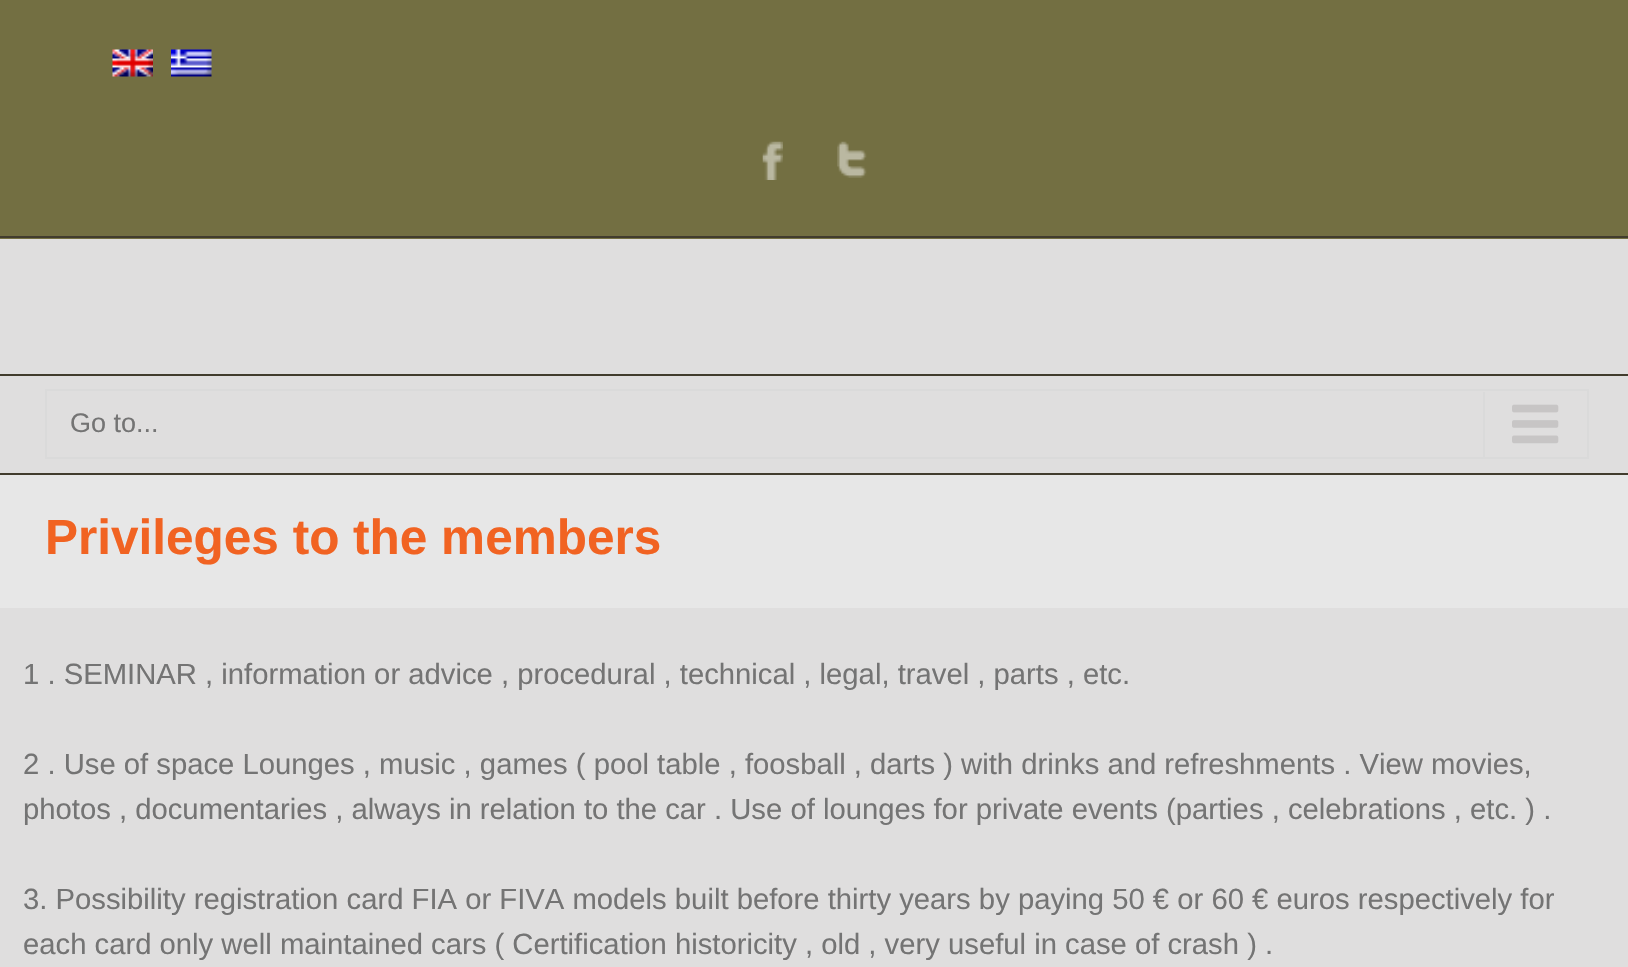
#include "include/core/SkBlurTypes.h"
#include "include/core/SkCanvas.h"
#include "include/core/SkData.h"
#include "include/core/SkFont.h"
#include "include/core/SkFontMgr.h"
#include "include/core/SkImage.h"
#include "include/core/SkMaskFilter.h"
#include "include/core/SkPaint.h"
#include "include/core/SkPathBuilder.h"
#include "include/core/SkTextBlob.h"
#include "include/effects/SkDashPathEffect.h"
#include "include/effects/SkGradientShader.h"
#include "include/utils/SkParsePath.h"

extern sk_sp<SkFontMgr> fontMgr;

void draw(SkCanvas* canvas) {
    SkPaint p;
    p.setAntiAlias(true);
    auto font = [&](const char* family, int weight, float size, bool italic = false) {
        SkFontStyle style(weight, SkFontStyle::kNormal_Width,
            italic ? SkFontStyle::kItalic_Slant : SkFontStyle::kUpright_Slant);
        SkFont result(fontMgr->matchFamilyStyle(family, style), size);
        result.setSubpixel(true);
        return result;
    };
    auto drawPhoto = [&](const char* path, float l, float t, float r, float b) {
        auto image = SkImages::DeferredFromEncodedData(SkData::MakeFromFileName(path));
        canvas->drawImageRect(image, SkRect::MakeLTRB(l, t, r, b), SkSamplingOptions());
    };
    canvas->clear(0xFFDFDEDE);
    p.setColor(0xFF736F42);
    canvas->drawRect(SkRect::MakeLTRB(0, 0, 1628, 239), p);
    p.setColor(0xFF413C2D);
    canvas->drawRect(SkRect::MakeLTRB(0, 236, 1628, 238), p);
    drawPhoto("media/1.png", 112, 49, 153, 77);
    drawPhoto("media/2.png", 171, 49, 212, 77);
    drawPhoto("media/3.png", 762, 141, 783, 180);
    drawPhoto("media/4.png", 837, 141, 867, 178);
    canvas->drawRect(SkRect::MakeLTRB(0, 374, 1628, 376), p);
    canvas->drawRect(SkRect::MakeLTRB(0, 473, 1628, 475), p);
    p.setStyle(SkPaint::kStroke_Style);
    p.setStrokeWidth(2);
    p.setColor(0xFFDADADA);
    canvas->drawRect(SkRect::MakeLTRB(46, 390, 1588, 458), p);
    auto font1 = font("Liberation Sans", 400, 27);
    p.setStyle(SkPaint::kFill_Style);
    p.setColor(0xFF747474);
    canvas->drawString("Go to...", 70, 432, font1, p);
    p.setColor(0xFFDADADA);
    canvas->drawRect(SkRect::MakeLTRB(1483, 392, 1485, 457), p);
    drawPhoto("media/5.png", 1512, 404, 1559, 444);
    p.setColor(0xFFE7E7E7);
    canvas->drawRect(SkRect::MakeLTRB(0, 475, 1628, 608), p);
    auto font2 = font("Liberation Sans", 700, 49.5f);
    p.setColor(0xFFF16322);
    canvas->drawString("Privileges to the members", 45, 554, font2, p);
    auto font3 = font("Liberation Sans", 400, 29.25f);
    p.setColor(0xFF747474);
    {
        const struct { const char* s; float x, y; } items[] = {
            {"1 . SEMINAR , information or advice , procedural , technical , legal, travel , parts , etc.", 23, 684},
            {"2 . Use of space Lounges , music , games ( pool table , foosball , darts ) with drinks and refreshments . View movies,", 23, 774},
            {"photos , documentaries , always in relation to the car . Use of lounges for private events (parties , celebrations , etc. ) .", 23, 819},
            {"3. Possibility registration card FIA or FIVA models built before thirty years by paying 50 € or 60 € euros respectively for", 23, 909},
            {"each card only well maintained cars ( Certification historicity , old , very useful in case of crash ) .", 23, 954},
        };
        for (auto [s, x, y] : items) {
            canvas->drawString(s, x, y, font3, p);
        }
    }
}
